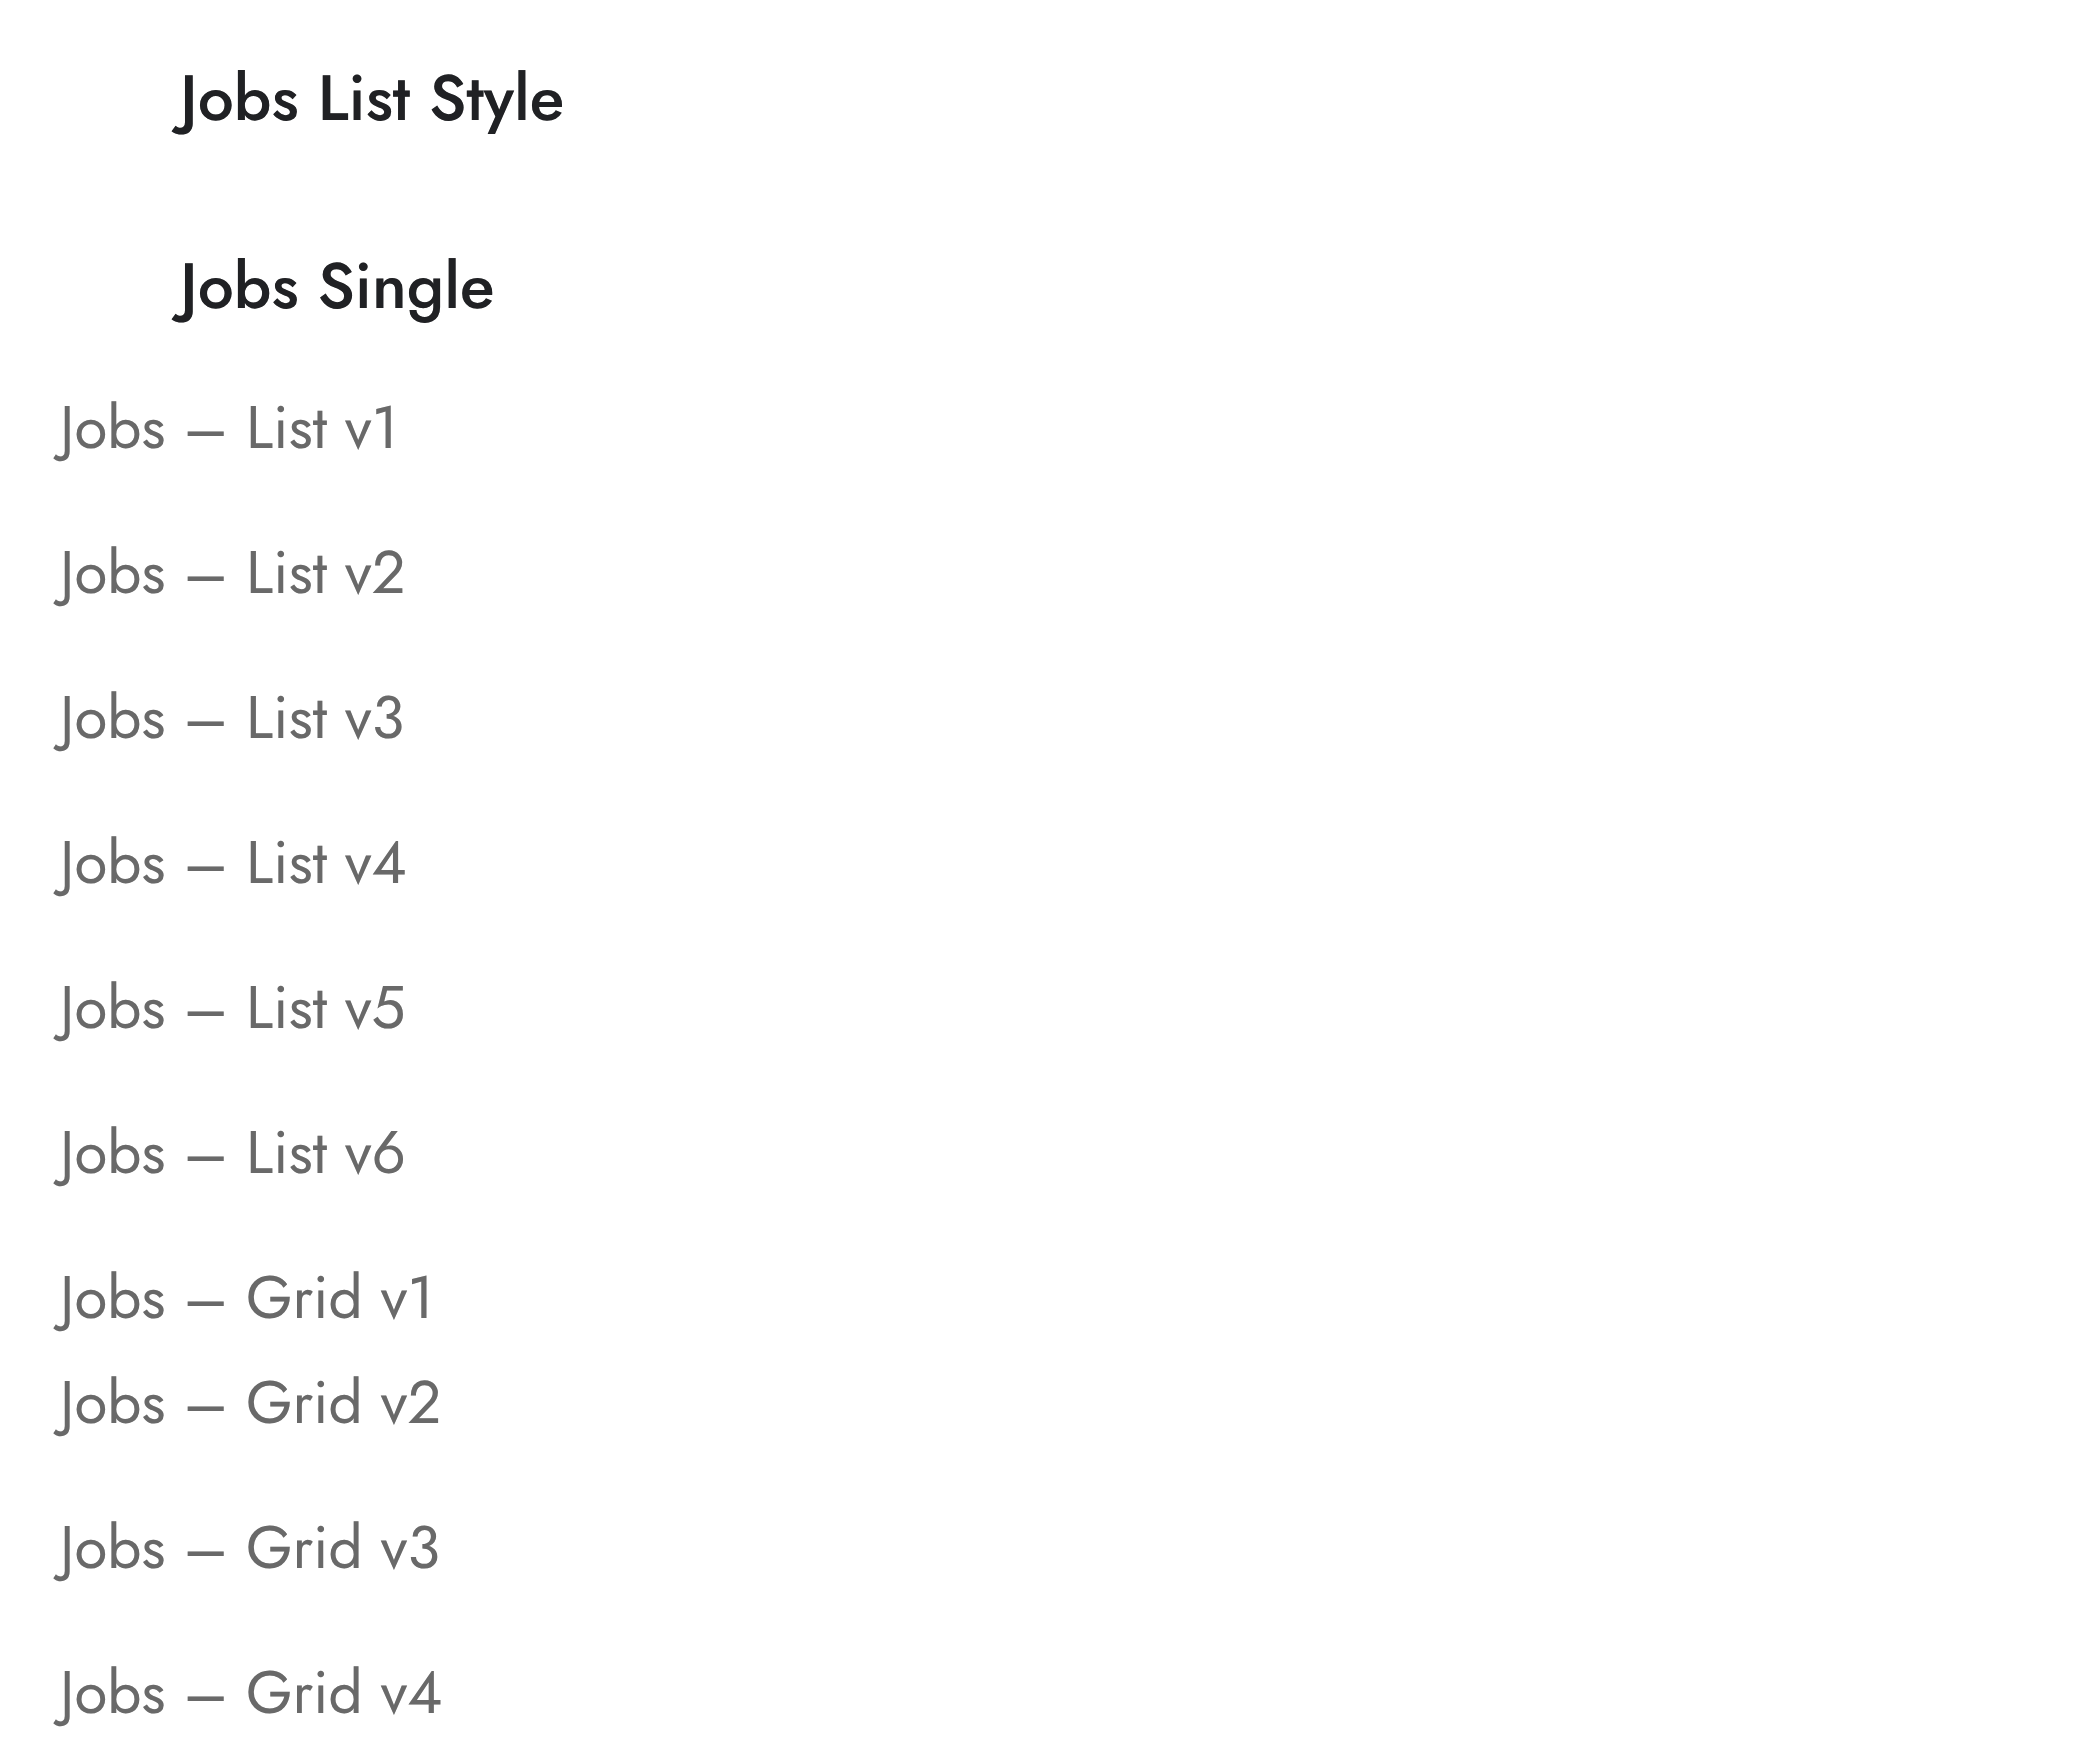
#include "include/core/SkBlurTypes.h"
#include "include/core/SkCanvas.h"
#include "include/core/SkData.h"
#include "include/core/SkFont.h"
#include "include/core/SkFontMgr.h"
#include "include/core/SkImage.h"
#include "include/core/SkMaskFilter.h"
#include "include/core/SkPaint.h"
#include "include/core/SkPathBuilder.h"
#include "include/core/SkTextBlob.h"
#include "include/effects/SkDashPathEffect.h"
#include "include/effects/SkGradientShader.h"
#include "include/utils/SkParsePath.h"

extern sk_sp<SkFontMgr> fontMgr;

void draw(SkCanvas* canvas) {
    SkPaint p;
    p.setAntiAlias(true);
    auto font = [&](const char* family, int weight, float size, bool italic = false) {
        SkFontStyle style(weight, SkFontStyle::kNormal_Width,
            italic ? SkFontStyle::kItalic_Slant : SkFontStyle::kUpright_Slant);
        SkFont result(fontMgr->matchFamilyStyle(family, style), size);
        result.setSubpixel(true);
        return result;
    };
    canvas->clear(0xFFFFFFFF);
    auto font1 = font("Jost", 500, 64);
    p.setColor(0xFF202124);
    canvas->drawString("Jobs List Style", 180, 120, font1, p);
    canvas->drawString("Jobs Single", 180, 308, font1, p);
    auto font2 = font("Jost", 400, 60);
    p.setColor(0xFF696969);
    {
        const struct { const char* s; float x, y; } items[] = {
            {"Jobs – List v1", 60, 448},
            {"Jobs – List v2", 60, 593},
            {"Jobs – List v3", 60, 738},
            {"Jobs – List v4", 60, 883},
            {"Jobs – List v5", 60, 1028},
            {"Jobs – List v6", 60, 1173},
            {"Jobs – Grid v1", 60, 1318},
            {"Jobs – Grid v2", 60, 1423},
            {"Jobs – Grid v3", 60, 1568},
            {"Jobs – Grid v4", 60, 1713},
        };
        for (auto [s, x, y] : items) {
            canvas->drawString(s, x, y, font2, p);
        }
    }
}
